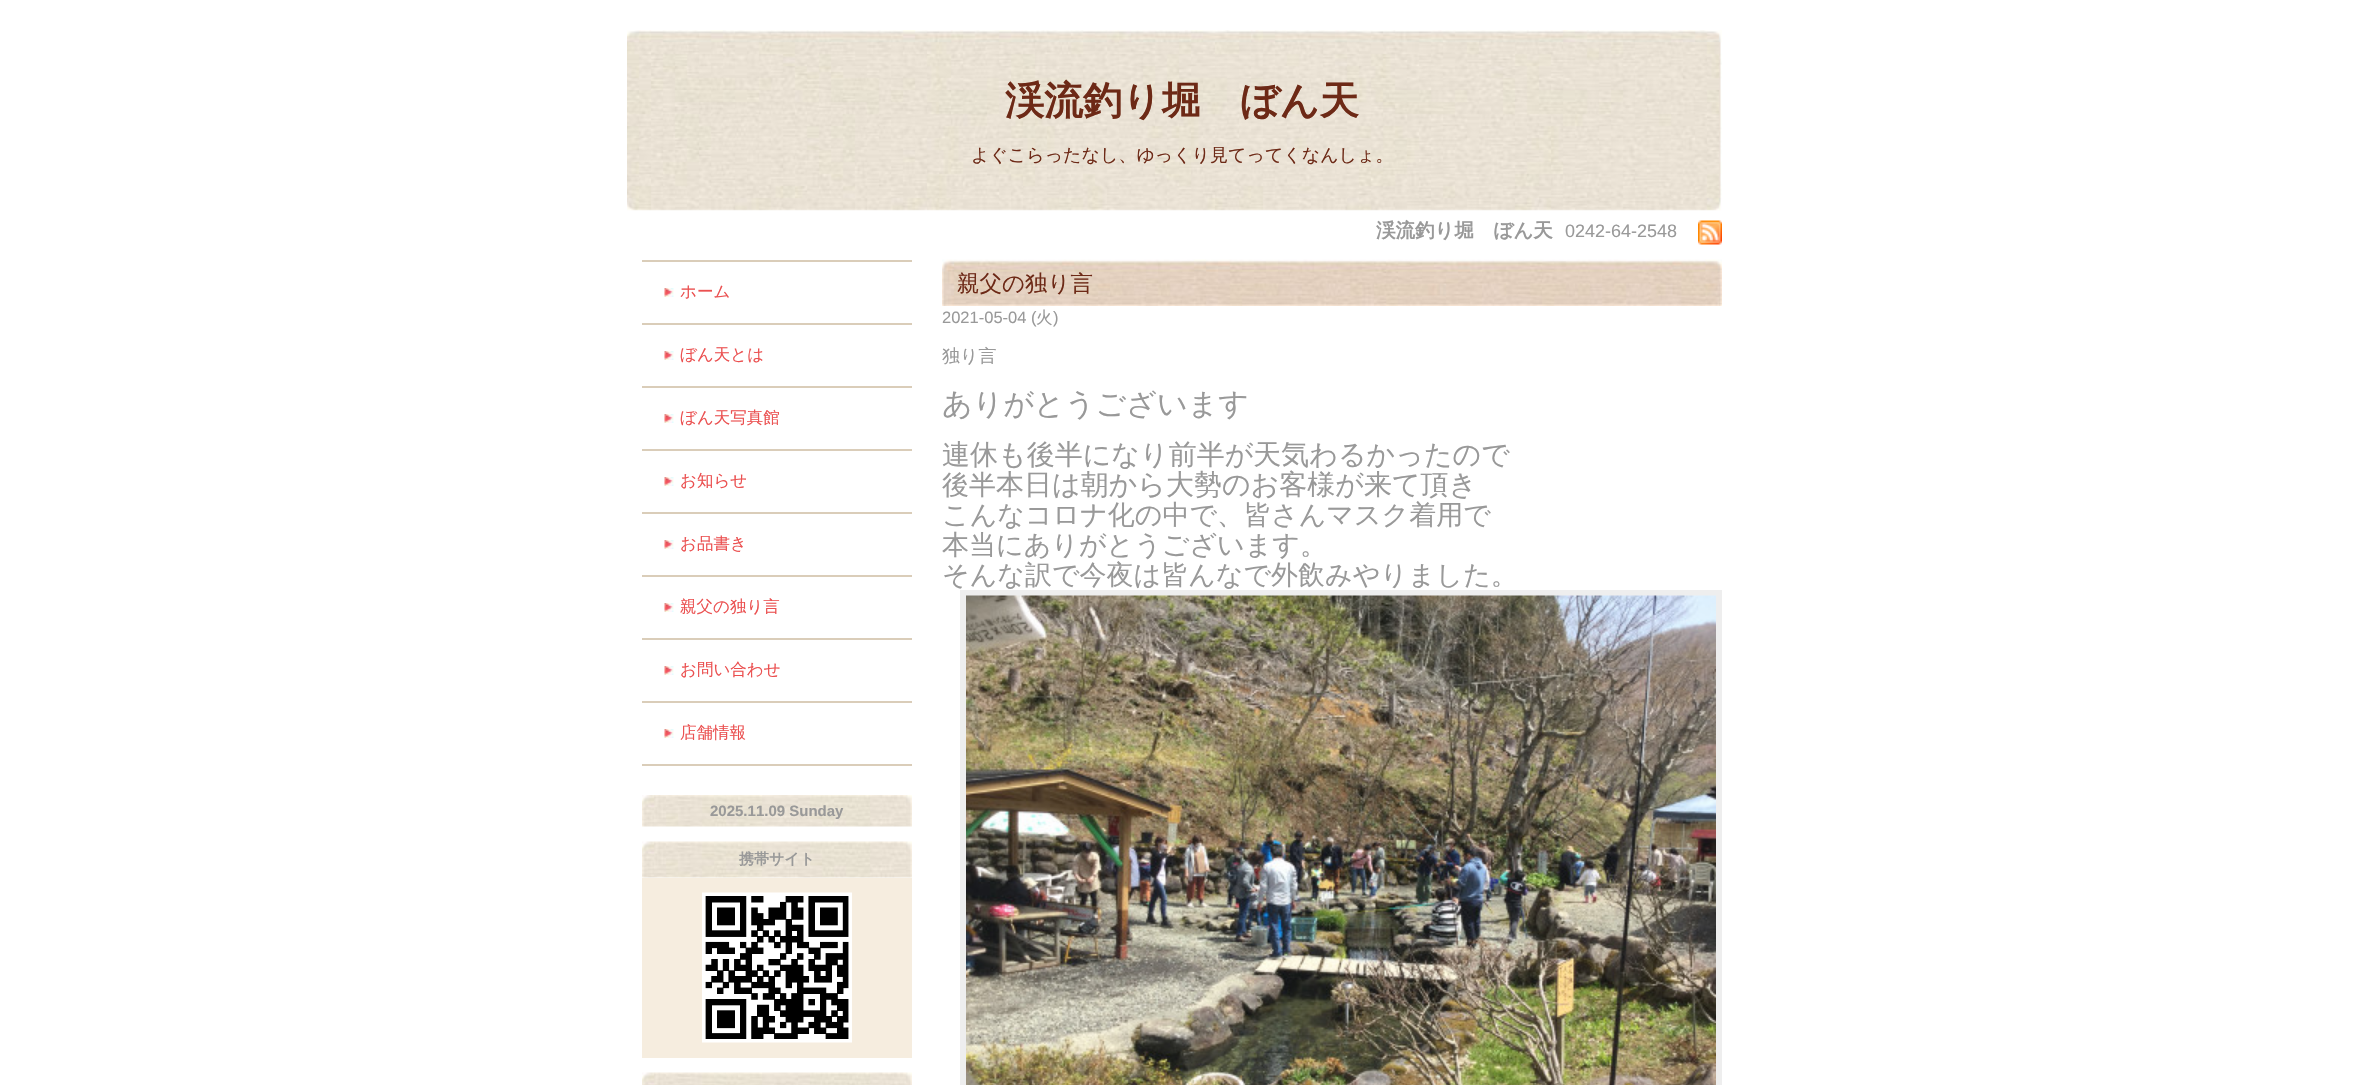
#include "include/core/SkBlurTypes.h"
#include "include/core/SkCanvas.h"
#include "include/core/SkData.h"
#include "include/core/SkFont.h"
#include "include/core/SkFontMgr.h"
#include "include/core/SkImage.h"
#include "include/core/SkMaskFilter.h"
#include "include/core/SkPaint.h"
#include "include/core/SkPathBuilder.h"
#include "include/core/SkTextBlob.h"
#include "include/effects/SkDashPathEffect.h"
#include "include/effects/SkGradientShader.h"
#include "include/utils/SkParsePath.h"

extern sk_sp<SkFontMgr> fontMgr;

void draw(SkCanvas* canvas) {
    SkPaint p;
    p.setAntiAlias(true);
    auto font = [&](const char* family, int weight, float size, bool italic = false) {
        SkFontStyle style(weight, SkFontStyle::kNormal_Width,
            italic ? SkFontStyle::kItalic_Slant : SkFontStyle::kUpright_Slant);
        SkFont result(fontMgr->matchFamilyStyle(family, style), size);
        result.setSubpixel(true);
        return result;
    };
    auto drawPhoto = [&](const char* path, float l, float t, float r, float b) {
        auto image = SkImages::DeferredFromEncodedData(SkData::MakeFromFileName(path));
        canvas->drawImageRect(image, SkRect::MakeLTRB(l, t, r, b), SkSamplingOptions());
    };
    canvas->clear(0xFFFFFFFF);
    drawPhoto("media/1.png", 627, 30, 1722, 211);
    auto font1 = font("WenQuanYi Zen Hei", 700, 39);
    p.setColor(0xFF6D2916);
    canvas->drawString("渓流釣り堀　ぼん天", 1005, 114, font1, p);
    auto font2 = font("WenQuanYi Zen Hei", 500, 18);
    canvas->drawString("よぐこらったなし、ゆっくり見てってくなんしょ。", 971, 161, font2, p);
    auto font3 = font("WenQuanYi Zen Hei", 700, 19.5f);
    p.setColor(0xFF999999);
    canvas->drawString("渓流釣り堀　ぼん天", 1376, 237, font3, p);
    auto font4 = font("Liberation Sans", 400, 18);
    canvas->drawString("0242-64-2548", 1565, 237, font4, p);
    drawPhoto("media/2.png", 1698, 220, 1722, 245);
    p.setColor(0xFFDACDB9);
    canvas->drawRect(SkRect::MakeLTRB(642, 260, 912, 262), p);
    canvas->drawRect(SkRect::MakeLTRB(642, 323, 912, 325), p);
    drawPhoto("media/3.png", 664, 288, 674, 297);
    auto font5 = font("WenQuanYi Zen Hei", 500, 16.5f);
    p.setColor(0xFFEB5050);
    canvas->drawString("ホーム", 680, 297, font5, p);
    p.setColor(0xFFDACDB9);
    canvas->drawRect(SkRect::MakeLTRB(642, 386, 912, 388), p);
    drawPhoto("media/3.png", 664, 351, 674, 360);
    p.setColor(0xFFEB5050);
    canvas->drawString("ぼん天とは", 680, 360, font5, p);
    p.setColor(0xFFDACDB9);
    canvas->drawRect(SkRect::MakeLTRB(642, 449, 912, 451), p);
    drawPhoto("media/3.png", 664, 414, 674, 423);
    p.setColor(0xFFEB5050);
    canvas->drawString("ぼん天写真館", 680, 423, font5, p);
    p.setColor(0xFFDACDB9);
    canvas->drawRect(SkRect::MakeLTRB(642, 512, 912, 514), p);
    drawPhoto("media/3.png", 664, 477, 674, 486);
    p.setColor(0xFFEB5050);
    canvas->drawString("お知らせ", 680, 486, font5, p);
    p.setColor(0xFFDACDB9);
    canvas->drawRect(SkRect::MakeLTRB(642, 575, 912, 577), p);
    drawPhoto("media/3.png", 664, 540, 674, 549);
    p.setColor(0xFFEB5050);
    canvas->drawString("お品書き", 680, 549, font5, p);
    p.setColor(0xFFDACDB9);
    canvas->drawRect(SkRect::MakeLTRB(642, 638, 912, 640), p);
    drawPhoto("media/3.png", 664, 603, 674, 612);
    p.setColor(0xFFEB5050);
    canvas->drawString("親父の独り言", 680, 612, font5, p);
    p.setColor(0xFFDACDB9);
    canvas->drawRect(SkRect::MakeLTRB(642, 701, 912, 703), p);
    drawPhoto("media/3.png", 664, 666, 674, 675);
    p.setColor(0xFFEB5050);
    canvas->drawString("お問い合わせ", 680, 675, font5, p);
    p.setColor(0xFFDACDB9);
    canvas->drawRect(SkRect::MakeLTRB(642, 764, 912, 766), p);
    drawPhoto("media/3.png", 664, 729, 674, 738);
    p.setColor(0xFFEB5050);
    canvas->drawString("店舗情報", 680, 738, font5, p);
    drawPhoto("media/4.png", 942, 259, 1722, 306);
    auto font6 = font("WenQuanYi Zen Hei", 500, 22.5f);
    p.setColor(0xFF6D2916);
    canvas->drawString("親父の独り言", 957, 291, font6, p);
    auto font7 = font("Liberation Sans", 400, 16.5f);
    p.setColor(0xFF999999);
    canvas->drawString("2021-05-04 (", 942, 323, font7, p);
    canvas->drawString("火", 1036, 323, font5, p);
    canvas->drawString(")", 1053, 323, font7, p);
    canvas->drawString("独り言", 942, 362, font2, p);
    auto font8 = font("WenQuanYi Zen Hei", 500, 30);
    canvas->drawString("ありがとうございます", 942, 414, font8, p);
    auto font9 = font("WenQuanYi Zen Hei", 500, 28);
    canvas->drawString("連休も後半になり前半が天気わるかったので", 942, 464, font9, p);
    auto font10 = font("WenQuanYi Zen Hei", 500, 27);
    canvas->drawString("後半", 942, 494, font10, p);
    canvas->drawString("本日は朝から大勢のお客様が来て頂き", 996, 494, font9, p);
    {
        const struct { const char* s; float x, y; } items[] = {
            {"こんなコロナ化の中で、皆さんマスク着用で", 942, 524},
            {"本当にありがとうございます。", 942, 554},
            {"そんな訳で今夜は皆んなで外飲みやりました。", 942, 584},
        };
        for (auto [s, x, y] : items) {
            canvas->drawString(s, x, y, font10, p);
        }
    }
    p.setColor(0xFFEEEEEE);
    canvas->drawRect(SkRect::MakeLTRB(960, 590, 1722, 1085), p);
    drawPhoto("media/5.png", 966, 595, 1716, 1085);
    drawPhoto("media/6.png", 642, 795, 912, 827);
    auto font11 = font("Liberation Sans", 700, 15);
    p.setColor(0xFF999999);
    canvas->drawString("2025.11.09 Sunday", 710, 816, font11, p);
    drawPhoto("media/7.png", 642, 841, 912, 878);
    auto font12 = font("WenQuanYi Zen Hei", 700, 15);
    canvas->drawString("携帯サイト", 739, 864, font12, p);
    p.setColor(0xFFF6EDDF);
    canvas->drawRect(SkRect::MakeLTRB(642, 878, 912, 1058), p);
    drawPhoto("media/8.png", 702, 892, 852, 1043);
    drawPhoto("media/9.png", 642, 1072, 912, 1085);
}
